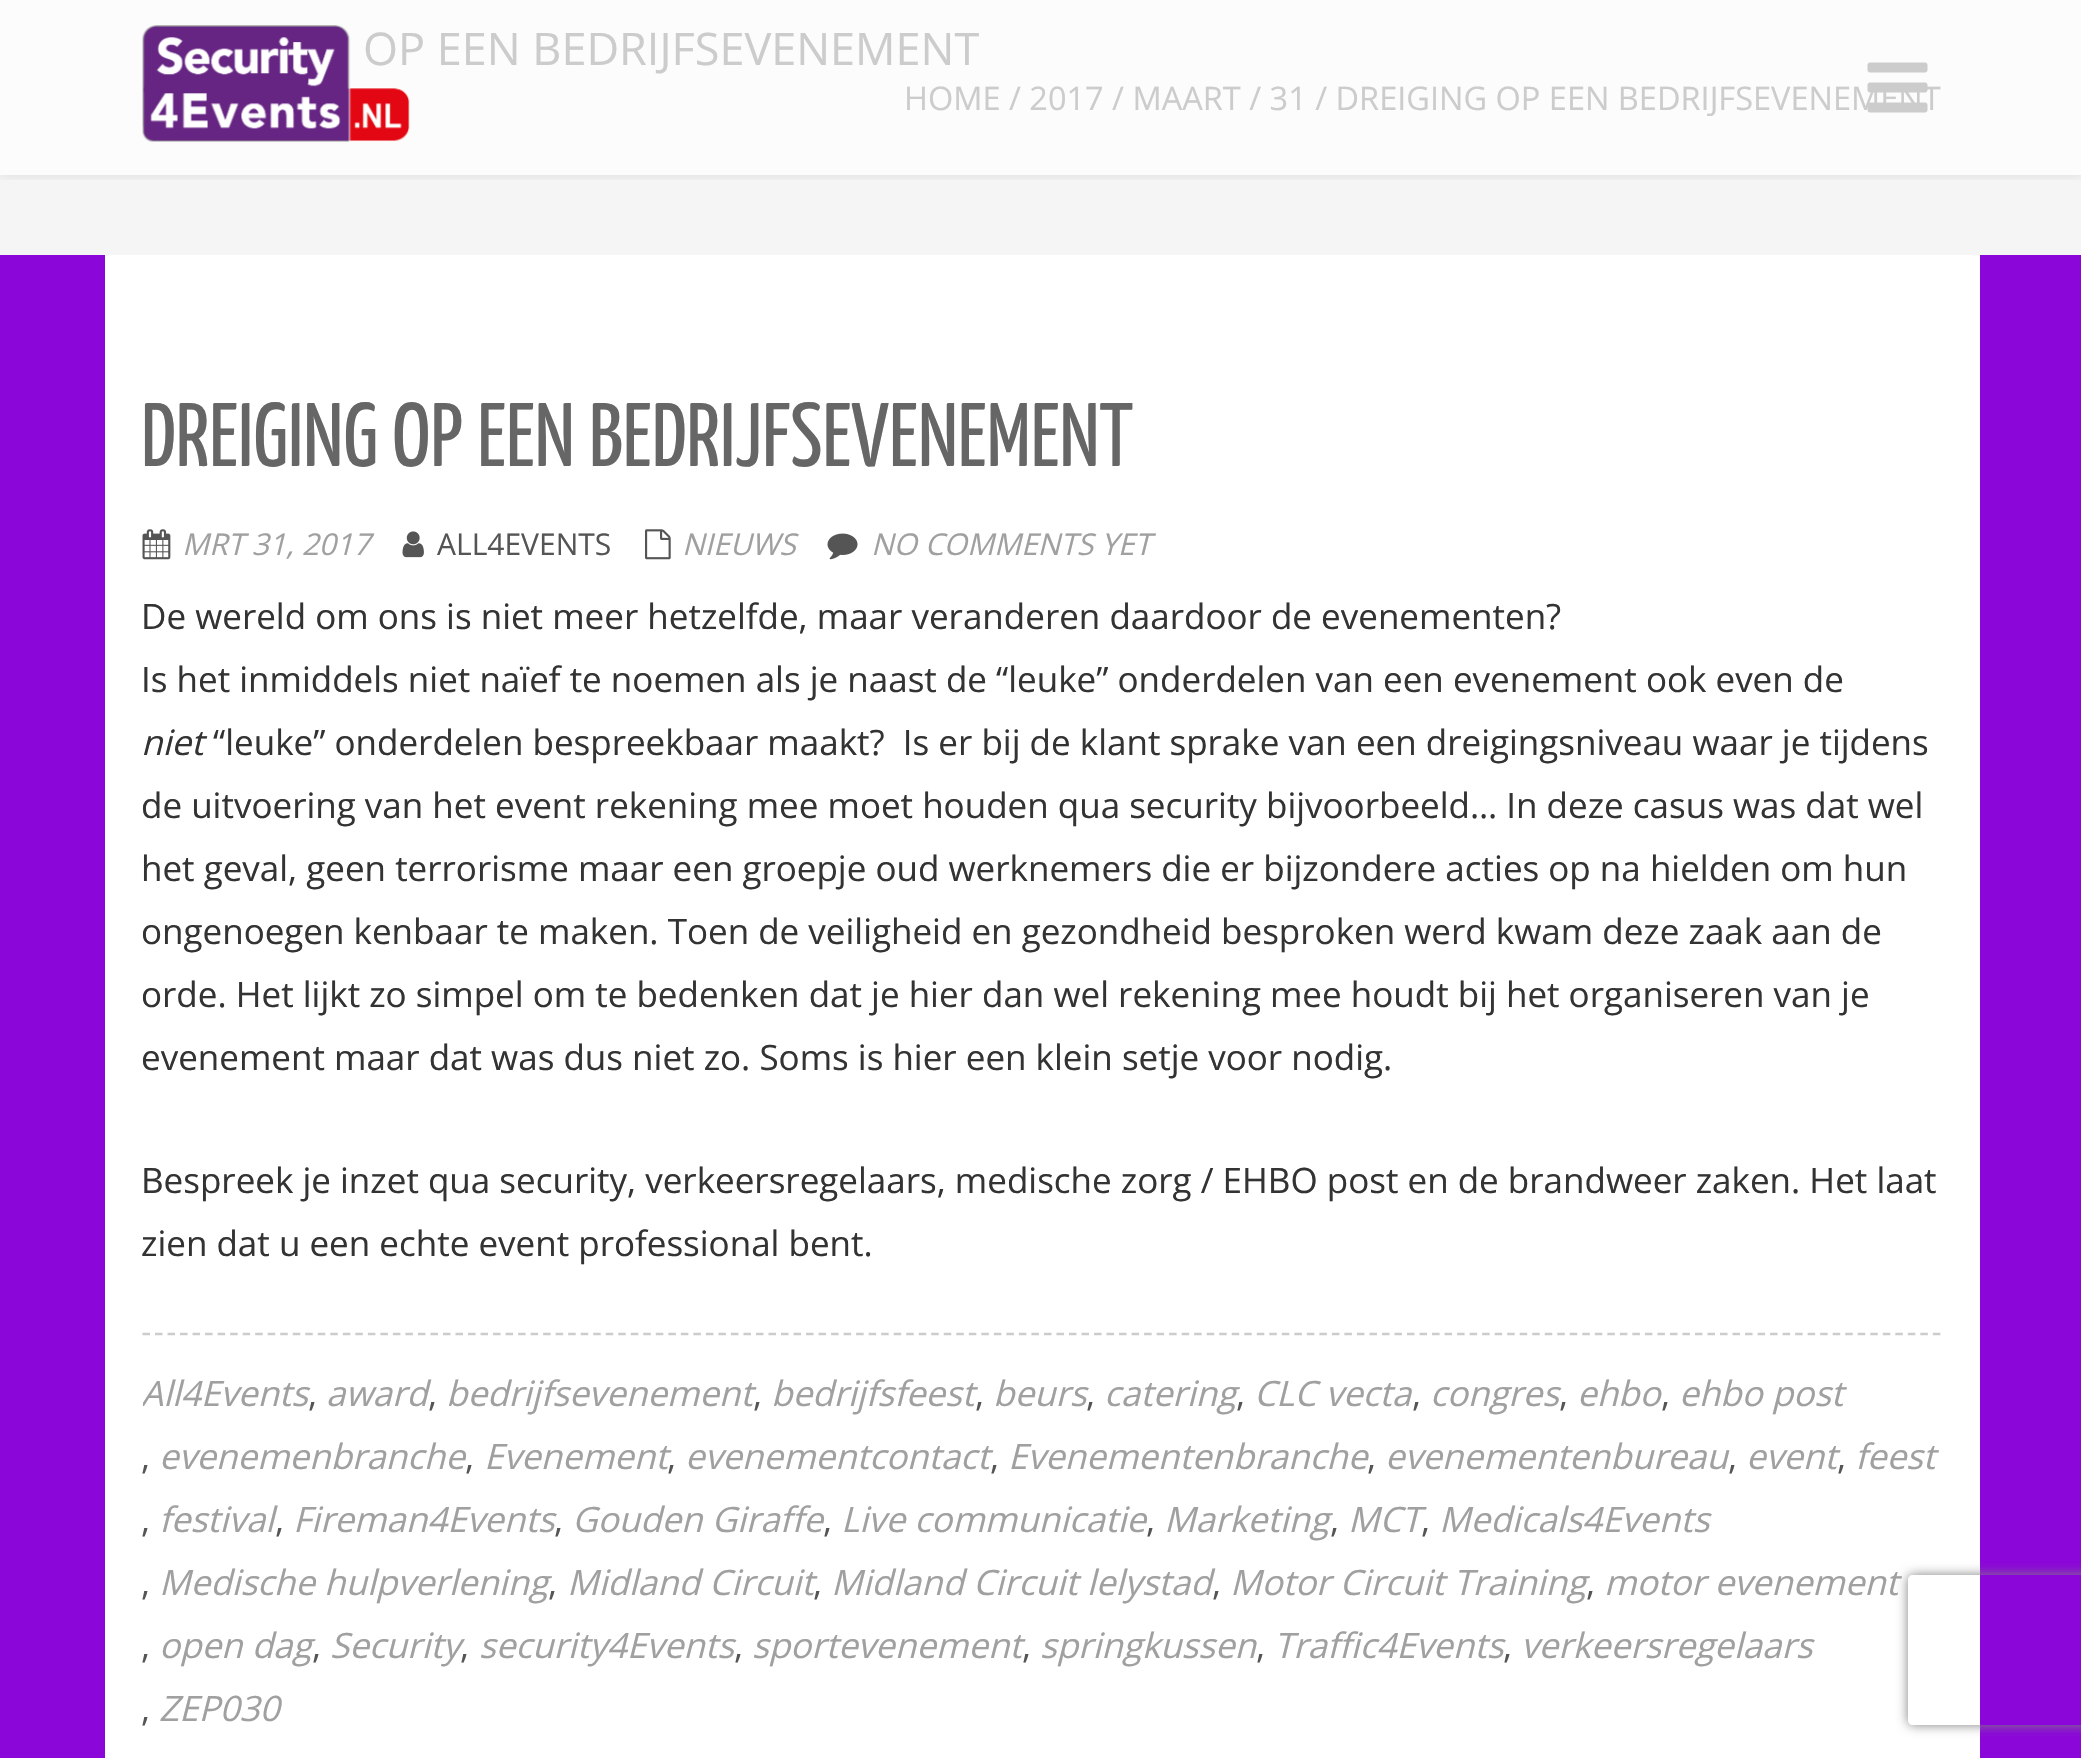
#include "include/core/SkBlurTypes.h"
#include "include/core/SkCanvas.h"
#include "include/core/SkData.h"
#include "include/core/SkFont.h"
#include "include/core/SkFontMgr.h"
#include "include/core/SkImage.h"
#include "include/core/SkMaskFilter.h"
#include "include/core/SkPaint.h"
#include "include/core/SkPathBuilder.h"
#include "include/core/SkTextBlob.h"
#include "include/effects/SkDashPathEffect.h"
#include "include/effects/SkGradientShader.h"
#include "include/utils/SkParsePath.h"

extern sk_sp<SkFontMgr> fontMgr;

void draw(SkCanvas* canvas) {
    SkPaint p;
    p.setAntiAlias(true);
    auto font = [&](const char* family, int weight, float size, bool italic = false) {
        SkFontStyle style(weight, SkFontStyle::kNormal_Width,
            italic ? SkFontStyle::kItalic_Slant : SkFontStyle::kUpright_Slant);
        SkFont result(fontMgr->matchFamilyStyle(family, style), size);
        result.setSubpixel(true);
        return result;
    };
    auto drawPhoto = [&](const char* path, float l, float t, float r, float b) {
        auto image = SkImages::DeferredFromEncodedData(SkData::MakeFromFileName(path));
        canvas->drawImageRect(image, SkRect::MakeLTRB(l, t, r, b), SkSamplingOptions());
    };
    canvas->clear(0xFF8B06D8);
    p.setColor(0xFFF5F5F5);
    canvas->drawRect(SkRect::MakeLTRB(0, 175, 2081, 255), p);
    p.setColor(0xFFFCFCFC);
    canvas->drawRect(SkRect::MakeLTRB(0, 0, 2081, 175), p);
    canvas->save();
    canvas->clipRect(SkRect::MakeLTRB(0, 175, 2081, 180));
    p.setColor(0x1A000000);
    p.setMaskFilter(SkMaskFilter::MakeBlur(kNormal_SkBlurStyle, 6));
    canvas->drawRect(SkRect::MakeLTRB(0, 0, 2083, 175), p);
    p.setMaskFilter(nullptr);
    canvas->restore();
    auto font1 = font("Open Sans", 400, 45);
    p.setColor(0xFFCCCCCC);
    canvas->drawString("OP EEN BEDRIJFSEVENEMENT", 363, 65, font1, p);
    drawPhoto("media/1.png", 142, 25, 410, 142);
    auto font2 = font("Open Sans", 400, 32.5f);
    canvas->drawString("HOME / 2017 / MAART / 31 / DREIGING OP EEN BEDRIJFSEVENEMENT", 904, 110, font2, p);
    drawPhoto("media/2.png", 1867, 62, 1928, 113);
    p.setColor(0xFFFFFFFF);
    canvas->drawRect(SkRect::MakeLTRB(105, 255, 1980, 1758), p);
    auto font3 = font("Yanone Kaffeesatz", 200, 90);
    p.setColor(0xFF666666);
    canvas->drawString("DREIGING OP EEN BEDRIJFSEVENEMENT", 141, 466, font3, p);
    drawPhoto("media/3.png", 142, 529, 171, 560);
    auto font4 = font("Open Sans", 400, 30, true);
    p.setColor(0xFFA0A0A0);
    canvas->drawString("MRT 31, 2017", 182, 555, font4, p);
    drawPhoto("media/4.png", 402, 531, 424, 558);
    auto font5 = font("Open Sans", 400, 30);
    p.setColor(0xFF555555);
    canvas->drawString("ALL4EVENTS", 437, 555, font5, p);
    drawPhoto("media/5.png", 645, 529, 671, 560);
    p.setColor(0xFFA0A0A0);
    canvas->drawString("NIEUWS", 682, 555, font4, p);
    drawPhoto("media/6.png", 827, 533, 858, 560);
    canvas->drawString("NO COMMENTS YET", 871, 555, font4, p);
    auto font6 = font("Open Sans", 400, 35);
    p.setColor(0xFF333333);
    canvas->drawString("De wereld om ons is niet meer hetzelfde, maar veranderen daardoor de evenementen?", 141, 629, font6, p);
    canvas->drawString("Is het inmiddels niet naïef te noemen als je naast de “leuke” onderdelen van een evenement ook even de", 141, 692, font6, p);
    auto font7 = font("Open Sans", 400, 35, true);
    canvas->drawString("niet", 141, 755, font7, p);
    {
        const struct { const char* s; float x, y; } items[] = {
            {"“leuke” onderdelen bespreekbaar maakt?  Is er bij de klant sprake van een dreigingsniveau waar je tijdens", 213, 755},
            {"de uitvoering van het event rekening mee moet houden qua security bijvoorbeeld… In deze casus was dat wel", 141, 818},
            {"het geval, geen terrorisme maar een groepje oud werknemers die er bijzondere acties op na hielden om hun", 141, 881},
            {"ongenoegen kenbaar te maken. Toen de veiligheid en gezondheid besproken werd kwam deze zaak aan de", 141, 944},
            {"orde. Het lijkt zo simpel om te bedenken dat je hier dan wel rekening mee houdt bij het organiseren van je", 141, 1007},
            {"evenement maar dat was dus niet zo. Soms is hier een klein setje voor nodig.", 141, 1070},
            {"Bespreek je inzet qua security, verkeersregelaars, medische zorg / EHBO post en de brandweer zaken. Het laat", 141, 1193},
            {"zien dat u een echte event professional bent.", 141, 1256},
        };
        for (auto [s, x, y] : items) {
            canvas->drawString(s, x, y, font6, p);
        }
    }
    p.setStyle(SkPaint::kStroke_Style);
    p.setStrokeWidth(2.5f);
    p.setColor(0xFFCCCCCC);
    p.setPathEffect(SkDashPathEffect::Make({{7.5f, 5.02f}}, 0));
    canvas->drawPath(SkPathBuilder().moveTo(142.5f, 1334).lineTo(1942.5f, 1334).detach(), p);
    p.setPathEffect(nullptr);
    canvas->save();
    canvas->clipRect(SkRect::MakeLTRB(143, 1335, 1943, 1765));
    p.setStyle(SkPaint::kFill_Style);
    p.setColor(0xFFA0A0A0);
    canvas->drawString("All4Events", 141, 1406, font7, p);
    canvas->restore();
    p.setColor(0xFF555555);
    canvas->drawString(",", 308, 1406, font6, p);
    p.setColor(0xFFA0A0A0);
    canvas->drawString("award", 326, 1406, font7, p);
    p.setColor(0xFF555555);
    canvas->drawString(",", 428, 1406, font6, p);
    p.setColor(0xFFA0A0A0);
    canvas->drawString("bedrijfsevenement", 446, 1406, font7, p);
    p.setColor(0xFF555555);
    canvas->drawString(",", 753, 1406, font6, p);
    p.setColor(0xFFA0A0A0);
    canvas->drawString("bedrijfsfeest", 771, 1406, font7, p);
    p.setColor(0xFF555555);
    canvas->drawString(",", 975, 1406, font6, p);
    p.setColor(0xFFA0A0A0);
    canvas->drawString("beurs", 993, 1406, font7, p);
    p.setColor(0xFF555555);
    canvas->drawString(",", 1086, 1406, font6, p);
    p.setColor(0xFFA0A0A0);
    canvas->drawString("catering", 1104, 1406, font7, p);
    p.setColor(0xFF555555);
    canvas->drawString(",", 1236, 1406, font6, p);
    p.setColor(0xFFA0A0A0);
    canvas->drawString("CLC vecta", 1254, 1406, font7, p);
    p.setColor(0xFF555555);
    canvas->drawString(",", 1412, 1406, font6, p);
    p.setColor(0xFFA0A0A0);
    canvas->drawString("congres", 1430, 1406, font7, p);
    p.setColor(0xFF555555);
    canvas->drawString(",", 1559, 1406, font6, p);
    p.setColor(0xFFA0A0A0);
    canvas->drawString("ehbo", 1577, 1406, font7, p);
    p.setColor(0xFF555555);
    canvas->drawString(",", 1661, 1406, font6, p);
    p.setColor(0xFFA0A0A0);
    canvas->drawString("ehbo post", 1679, 1406, font7, p);
    p.setColor(0xFF555555);
    canvas->drawString(",", 141, 1469, font6, p);
    p.setColor(0xFFA0A0A0);
    canvas->drawString("evenemenbranche", 159, 1469, font7, p);
    p.setColor(0xFF555555);
    canvas->drawString(",", 465, 1469, font6, p);
    p.setColor(0xFFA0A0A0);
    canvas->drawString("Evenement", 484, 1469, font7, p);
    p.setColor(0xFF555555);
    canvas->drawString(",", 667, 1469, font6, p);
    p.setColor(0xFFA0A0A0);
    canvas->drawString("evenementcontact", 685, 1469, font7, p);
    p.setColor(0xFF555555);
    canvas->drawString(",", 990, 1469, font6, p);
    p.setColor(0xFFA0A0A0);
    canvas->drawString("Evenementenbranche", 1008, 1469, font7, p);
    p.setColor(0xFF555555);
    canvas->drawString(",", 1367, 1469, font6, p);
    p.setColor(0xFFA0A0A0);
    canvas->drawString("evenementenbureau", 1385, 1469, font7, p);
    p.setColor(0xFF555555);
    canvas->drawString(",", 1728, 1469, font6, p);
    p.setColor(0xFFA0A0A0);
    canvas->drawString("event", 1746, 1469, font7, p);
    p.setColor(0xFF555555);
    canvas->drawString(",", 1837, 1469, font6, p);
    p.setColor(0xFFA0A0A0);
    canvas->drawString("feest", 1855, 1469, font7, p);
    p.setColor(0xFF555555);
    canvas->drawString(",", 141, 1532, font6, p);
    p.setColor(0xFFA0A0A0);
    canvas->drawString("festival", 159, 1532, font7, p);
    p.setColor(0xFF555555);
    canvas->drawString(",", 275, 1532, font6, p);
    p.setColor(0xFFA0A0A0);
    canvas->drawString("Fireman4Events", 293, 1532, font7, p);
    p.setColor(0xFF555555);
    canvas->drawString(",", 554, 1532, font6, p);
    p.setColor(0xFFA0A0A0);
    canvas->drawString("Gouden Giraffe", 572, 1532, font7, p);
    p.setColor(0xFF555555);
    canvas->drawString(",", 823, 1532, font6, p);
    p.setColor(0xFFA0A0A0);
    canvas->drawString("Live communicatie", 841, 1532, font7, p);
    p.setColor(0xFF555555);
    canvas->drawString(",", 1146, 1532, font6, p);
    p.setColor(0xFFA0A0A0);
    canvas->drawString("Marketing", 1164, 1532, font7, p);
    p.setColor(0xFF555555);
    canvas->drawString(",", 1330, 1532, font6, p);
    p.setColor(0xFFA0A0A0);
    canvas->drawString("MCT", 1348, 1532, font7, p);
    p.setColor(0xFF555555);
    canvas->drawString(",", 1421, 1532, font6, p);
    p.setColor(0xFFA0A0A0);
    canvas->drawString("Medicals4Events", 1439, 1532, font7, p);
    p.setColor(0xFF555555);
    canvas->drawString(",", 141, 1595, font6, p);
    p.setColor(0xFFA0A0A0);
    canvas->drawString("Medische hulpverlening", 159, 1595, font7, p);
    p.setColor(0xFF555555);
    canvas->drawString(",", 548, 1595, font6, p);
    p.setColor(0xFFA0A0A0);
    canvas->drawString("Midland Circuit", 567, 1595, font7, p);
    p.setColor(0xFF555555);
    canvas->drawString(",", 813, 1595, font6, p);
    p.setColor(0xFFA0A0A0);
    canvas->drawString("Midland Circuit lelystad", 831, 1595, font7, p);
    p.setColor(0xFF555555);
    canvas->drawString(",", 1212, 1595, font6, p);
    p.setColor(0xFFA0A0A0);
    canvas->drawString("Motor Circuit Training", 1230, 1595, font7, p);
    p.setColor(0xFF555555);
    canvas->drawString(",", 1586, 1595, font6, p);
    p.setColor(0xFFA0A0A0);
    canvas->drawString("motor evenement", 1604, 1595, font7, p);
    p.setColor(0xFF555555);
    canvas->drawString(",", 141, 1658, font6, p);
    p.setColor(0xFFA0A0A0);
    canvas->drawString("open dag", 159, 1658, font7, p);
    p.setColor(0xFF555555);
    canvas->drawString(",", 312, 1658, font6, p);
    p.setColor(0xFFA0A0A0);
    canvas->drawString("Security", 330, 1658, font7, p);
    p.setColor(0xFF555555);
    canvas->drawString(",", 460, 1658, font6, p);
    p.setColor(0xFFA0A0A0);
    canvas->drawString("security4Events", 479, 1658, font7, p);
    p.setColor(0xFF555555);
    canvas->drawString(",", 734, 1658, font6, p);
    p.setColor(0xFFA0A0A0);
    canvas->drawString("sportevenement", 752, 1658, font7, p);
    p.setColor(0xFF555555);
    canvas->drawString(",", 1022, 1658, font6, p);
    p.setColor(0xFFA0A0A0);
    canvas->drawString("springkussen", 1040, 1658, font7, p);
    p.setColor(0xFF555555);
    canvas->drawString(",", 1256, 1658, font6, p);
    p.setColor(0xFFA0A0A0);
    canvas->drawString("Traffic4Events", 1274, 1658, font7, p);
    p.setColor(0xFF555555);
    canvas->drawString(",", 1503, 1658, font6, p);
    p.setColor(0xFFA0A0A0);
    canvas->drawString("verkeersregelaars", 1521, 1658, font7, p);
    p.setColor(0xFF555555);
    canvas->drawString(",", 141, 1721, font6, p);
    p.setColor(0xFFA0A0A0);
    canvas->drawString("ZEP030", 159, 1721, font7, p);
    canvas->save();
    canvas->clipPath(SkPathBuilder(SkPathFillType::kEvenOdd).moveTo(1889, 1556).lineTo(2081, 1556).lineTo(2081, 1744).lineTo(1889, 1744).close().moveTo(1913, 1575).lineTo(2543, 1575).cubicTo(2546, 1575, 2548, 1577, 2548, 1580).lineTo(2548, 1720).cubicTo(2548, 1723, 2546, 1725, 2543, 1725).lineTo(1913, 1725).cubicTo(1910, 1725, 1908, 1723, 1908, 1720).lineTo(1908, 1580).cubicTo(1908, 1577, 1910, 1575, 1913, 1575).close().detach(), true);
    p.setColor(0xFF808080);
    p.setMaskFilter(SkMaskFilter::MakeBlur(kNormal_SkBlurStyle, 6));
    canvas->drawRoundRect(SkRect::MakeLTRB(1908, 1575, 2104, 1725), 5, 5, p);
    p.setMaskFilter(nullptr);
    canvas->restore();
}
